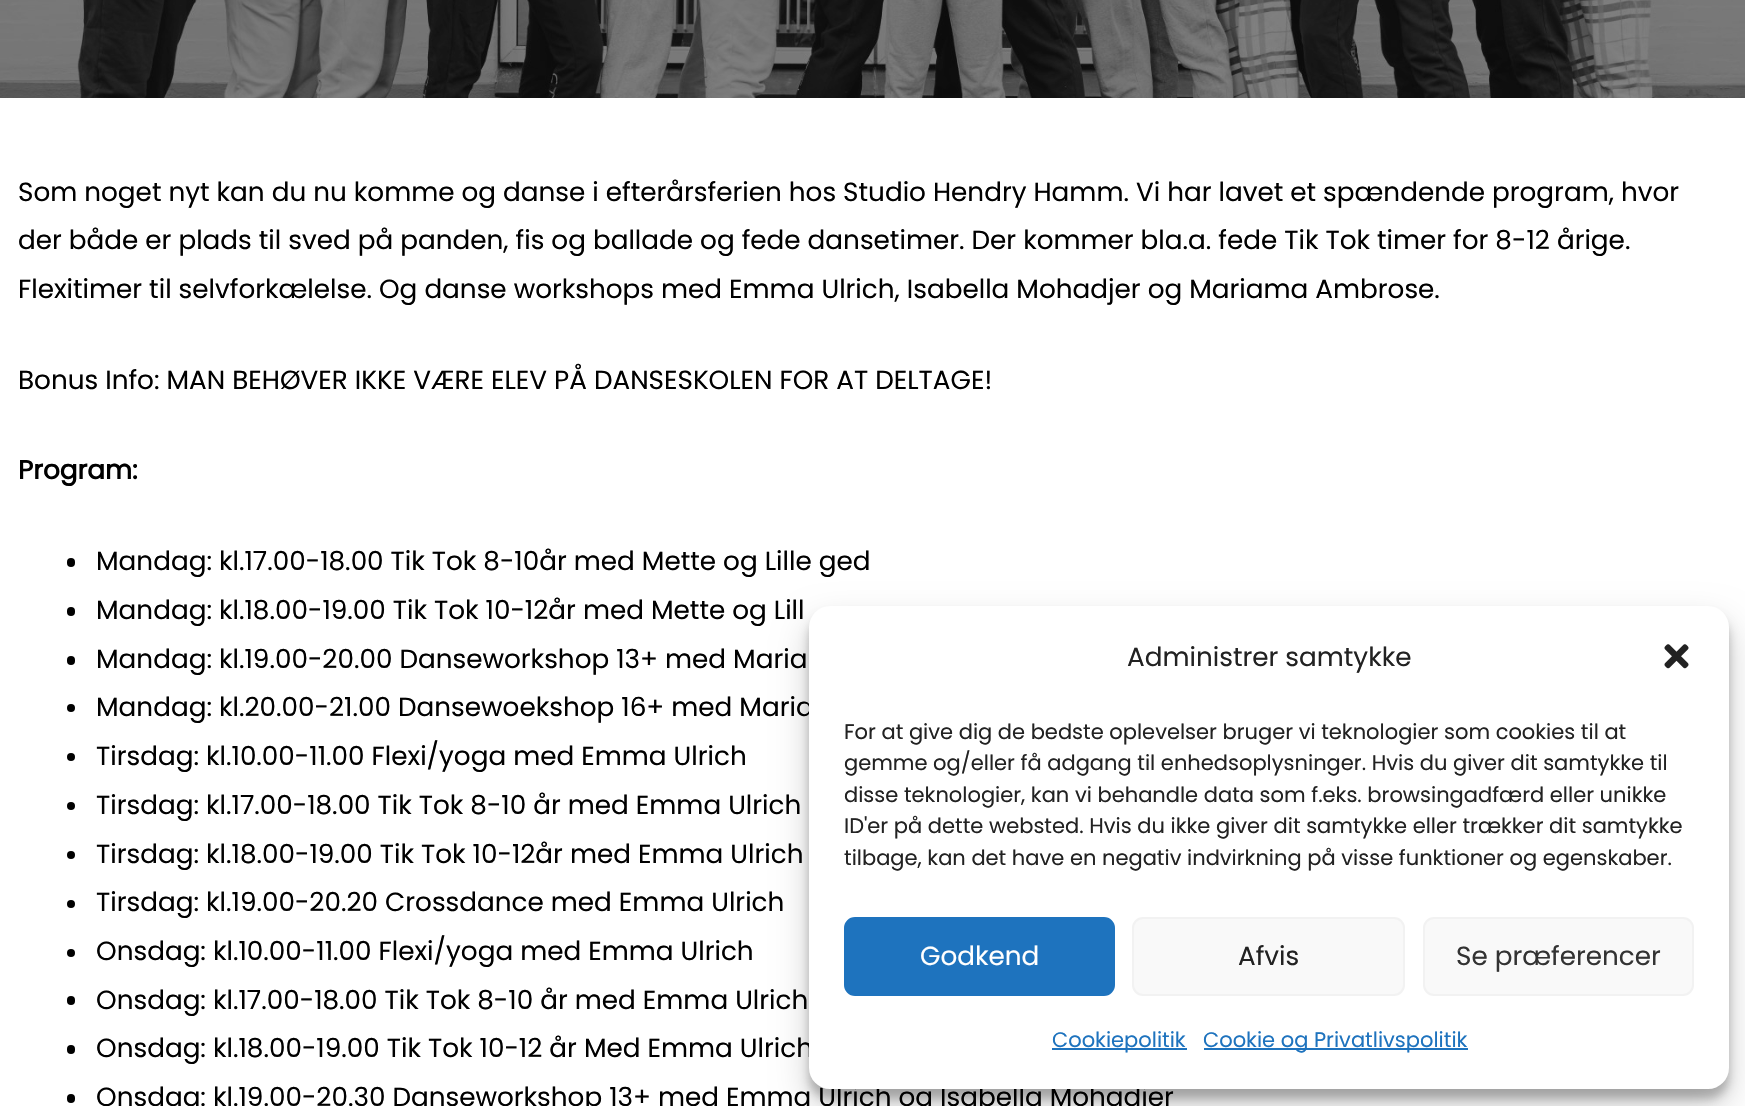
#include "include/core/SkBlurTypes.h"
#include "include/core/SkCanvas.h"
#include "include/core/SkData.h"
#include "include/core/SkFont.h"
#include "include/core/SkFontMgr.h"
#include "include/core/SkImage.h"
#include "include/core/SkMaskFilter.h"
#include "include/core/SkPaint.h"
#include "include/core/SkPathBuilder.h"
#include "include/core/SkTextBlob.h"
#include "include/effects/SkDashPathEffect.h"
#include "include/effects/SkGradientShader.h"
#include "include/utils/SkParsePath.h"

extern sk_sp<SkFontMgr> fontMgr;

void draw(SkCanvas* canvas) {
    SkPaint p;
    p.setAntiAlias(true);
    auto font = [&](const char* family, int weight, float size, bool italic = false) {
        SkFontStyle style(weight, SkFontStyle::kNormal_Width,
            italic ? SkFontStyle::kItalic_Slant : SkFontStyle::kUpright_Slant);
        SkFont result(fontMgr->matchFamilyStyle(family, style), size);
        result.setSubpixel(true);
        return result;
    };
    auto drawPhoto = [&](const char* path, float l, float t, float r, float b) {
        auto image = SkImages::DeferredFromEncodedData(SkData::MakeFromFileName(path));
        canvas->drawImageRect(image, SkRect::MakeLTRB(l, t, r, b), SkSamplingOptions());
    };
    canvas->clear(0xFFFFFFFF);
    drawPhoto("media/1.png", 0, 0, 1745, 98);
    auto font1 = font("Poppins", 400, 26.25f);
    p.setColor(0xFF000000);
    {
        const struct { const char* s; float x, y; } items[] = {
            {"Som noget nyt kan du nu komme og danse i efterårsferien hos Studio Hendry Hamm. Vi har lavet et spændende program, hvor", 18, 201},
            {"der både er plads til sved på panden, fis og ballade og fede dansetimer. Der kommer bla.a. fede Tik Tok timer for 8-12 årige.", 18, 249},
            {"Flexitimer til selvforkælelse. Og danse workshops med Emma Ulrich, Isabella Mohadjer og Mariama Ambrose.", 18, 298},
            {"Bonus Info: MAN BEHØVER IKKE VÆRE ELEV PÅ DANSESKOLEN FOR AT DELTAGE!", 18, 389},
        };
        for (auto [s, x, y] : items) {
            canvas->drawString(s, x, y, font1, p);
        }
    }
    auto font2 = font("Poppins", 700, 26.25f);
    canvas->drawString("Program:", 18, 479, font2, p);
    canvas->drawRoundRect(SkRect::MakeLTRB(67, 558, 75, 567), 4, 4, p);
    canvas->drawString("Mandag: kl.17.00-18.00 Tik Tok 8-10år med Mette og Lille ged", 96, 570, font1, p);
    canvas->drawRoundRect(SkRect::MakeLTRB(67, 607, 75, 616), 4, 4, p);
    canvas->drawString("Mandag: kl.18.00-19.00 Tik Tok 10-12år med Mette og Lill", 96, 619, font1, p);
    canvas->drawRoundRect(SkRect::MakeLTRB(67, 656, 75, 665), 4, 4, p);
    canvas->drawString("Mandag: kl.19.00-20.00 Danseworkshop 13+ med Maria", 96, 668, font1, p);
    canvas->drawCircle(71, 708, 4, p);
    canvas->drawString("Mandag: kl.20.00-21.00 Dansewoekshop 16+ med Maria", 96, 716, font1, p);
    canvas->drawCircle(71, 757, 4, p);
    canvas->drawString("Tirsdag: kl.10.00-11.00 Flexi/yoga med Emma Ulrich", 96, 765, font1, p);
    canvas->drawCircle(71, 806, 4, p);
    canvas->drawString("Tirsdag: kl.17.00-18.00 Tik Tok 8-10 år med Emma Ulrich", 96, 814, font1, p);
    canvas->drawCircle(71, 855, 4, p);
    canvas->drawString("Tirsdag: kl.18.00-19.00 Tik Tok 10-12år med Emma Ulrich", 96, 863, font1, p);
    canvas->drawCircle(71, 904, 4, p);
    canvas->drawString("Tirsdag: kl.19.00-20.20 Crossdance med Emma Ulrich", 96, 911, font1, p);
    canvas->drawCircle(71, 953, 4, p);
    canvas->drawString("Onsdag: kl.10.00-11.00 Flexi/yoga med Emma Ulrich", 96, 960, font1, p);
    canvas->drawRoundRect(SkRect::MakeLTRB(67, 996, 75, 1005), 4, 4, p);
    canvas->drawString("Onsdag: kl.17.00-18.00 Tik Tok 8-10 år med Emma Ulrich", 96, 1009, font1, p);
    canvas->drawRoundRect(SkRect::MakeLTRB(67, 1045, 75, 1054), 4, 4, p);
    canvas->drawString("Onsdag: kl.18.00-19.00 Tik Tok 10-12 år Med Emma Ulrich", 96, 1057, font1, p);
    canvas->drawRoundRect(SkRect::MakeLTRB(67, 1094, 75, 1103), 4, 4, p);
    canvas->drawString("Onsdag: kl.19.00-20.30 Danseworkshop 13+ med Emma Ulrich og Isabella Mohadjer", 96, 1106, font1, p);
    p.setColor(0x3B000000);
    p.setMaskFilter(SkMaskFilter::MakeBlur(kNormal_SkBlurStyle, 5));
    canvas->drawRoundRect(SkRect::MakeLTRB(809, 616, 1729, 1099), 21, 21, p);
    p.setMaskFilter(nullptr);
    p.setColor(0x30000000);
    p.setMaskFilter(SkMaskFilter::MakeBlur(kNormal_SkBlurStyle, 17.5f));
    canvas->drawRoundRect(SkRect::MakeLTRB(809, 623, 1729, 1106), 21, 21, p);
    p.setMaskFilter(nullptr);
    p.setColor(0xFFFFFFFF);
    canvas->drawRoundRect(SkRect::MakeLTRB(809, 606, 1729, 1089), 21, 21, p);
    p.setColor(0xFF222222);
    canvas->drawString("Administrer samtykke", 1127, 666, font1, p);
    drawPhoto("media/2.png", 1664, 644, 1689, 669);
    auto font3 = font("Poppins", 400, 21);
    {
        const struct { const char* s; float x, y; } items[] = {
            {"For at give dig de bedste oplevelser bruger vi teknologier som cookies til at", 844, 739},
            {"gemme og/eller få adgang til enhedsoplysninger. Hvis du giver dit samtykke til", 844, 770},
            {"disse teknologier, kan vi behandle data som f.eks. browsingadfærd eller unikke", 844, 802},
            {"ID'er på dette websted. Hvis du ikke giver dit samtykke eller trækker dit samtykke", 844, 833},
            {"tilbage, kan det have en negativ indvirkning på visse funktioner og egenskaber.", 844, 865},
        };
        for (auto [s, x, y] : items) {
            canvas->drawString(s, x, y, font3, p);
        }
    }
    p.setColor(0xFF1E73BE);
    canvas->drawRoundRect(SkRect::MakeLTRB(845, 918, 1114, 995), 10, 10, p);
    p.setStyle(SkPaint::kStroke_Style);
    p.setStrokeWidth(2);
    canvas->drawRoundRect(SkRect::MakeLTRB(845, 918, 1114, 995), 10, 10, p);
    p.setStyle(SkPaint::kFill_Style);
    p.setColor(0xFFFFFFFF);
    canvas->drawString("Godkend", 920, 965, font1, p);
    p.setColor(0xFFF9F9F9);
    canvas->drawRoundRect(SkRect::MakeLTRB(1133, 918, 1404, 995), 10, 10, p);
    p.setStyle(SkPaint::kStroke_Style);
    p.setColor(0xFFF2F2F2);
    canvas->drawRoundRect(SkRect::MakeLTRB(1133, 918, 1404, 995), 10, 10, p);
    p.setStyle(SkPaint::kFill_Style);
    p.setColor(0xFF222222);
    canvas->drawString("Afvis", 1238, 965, font1, p);
    p.setColor(0xFFF9F9F9);
    canvas->drawRoundRect(SkRect::MakeLTRB(1424, 918, 1693, 995), 10, 10, p);
    p.setStyle(SkPaint::kStroke_Style);
    p.setColor(0xFFF2F2F2);
    canvas->drawRoundRect(SkRect::MakeLTRB(1424, 918, 1693, 995), 10, 10, p);
    p.setStyle(SkPaint::kFill_Style);
    p.setColor(0xFF333333);
    canvas->drawString("Se præferencer", 1456, 965, font1, p);
    p.setColor(0xFF1E73BE);
    canvas->drawRect(SkRect::MakeLTRB(1052, 1048, 1187, 1050), p);
    canvas->drawString("Cookiepolitik", 1052, 1047, font3, p);
    canvas->drawRect(SkRect::MakeLTRB(1204, 1048, 1468, 1050), p);
    canvas->drawString("Cookie og Privatlivspolitik", 1203, 1047, font3, p);
}
